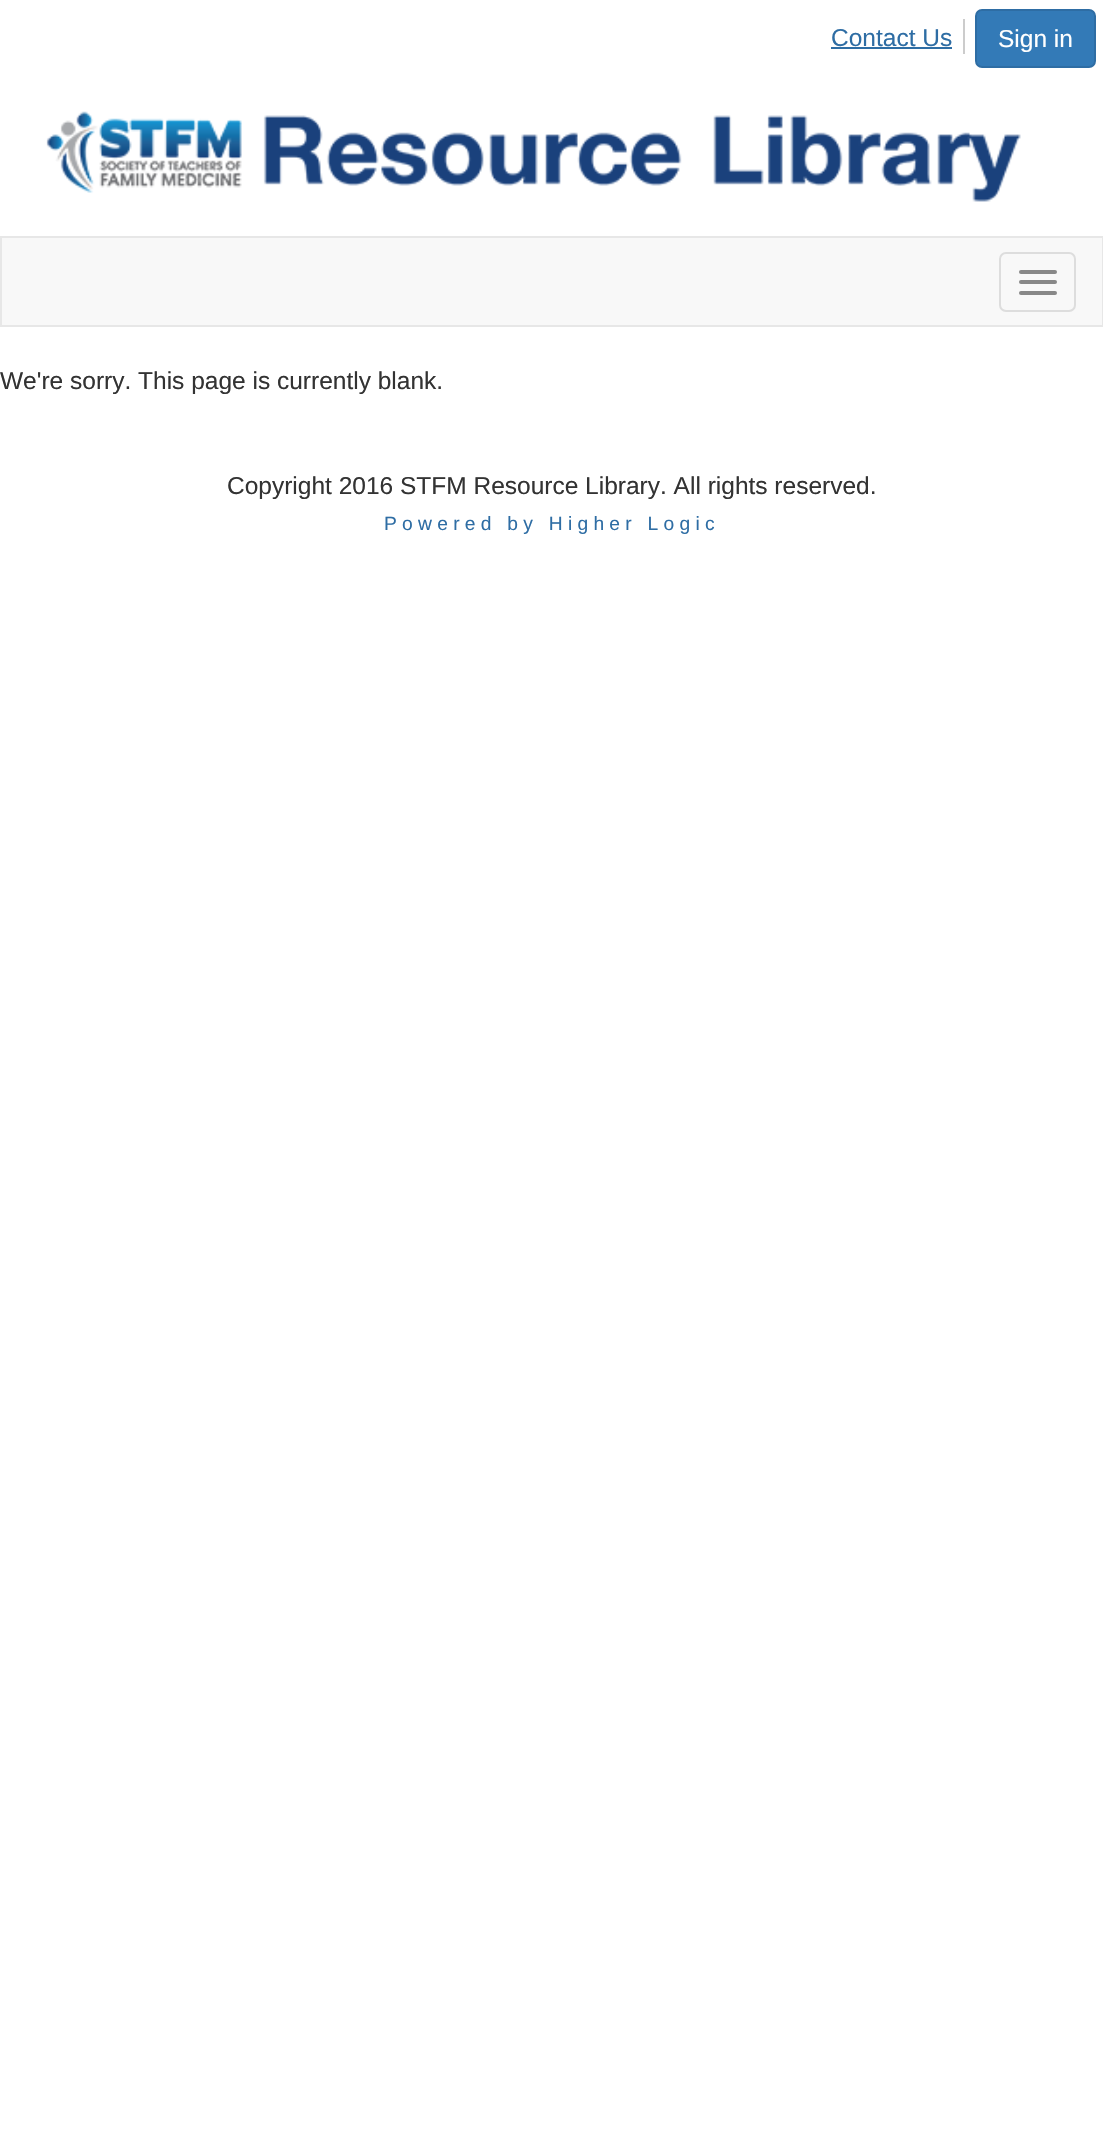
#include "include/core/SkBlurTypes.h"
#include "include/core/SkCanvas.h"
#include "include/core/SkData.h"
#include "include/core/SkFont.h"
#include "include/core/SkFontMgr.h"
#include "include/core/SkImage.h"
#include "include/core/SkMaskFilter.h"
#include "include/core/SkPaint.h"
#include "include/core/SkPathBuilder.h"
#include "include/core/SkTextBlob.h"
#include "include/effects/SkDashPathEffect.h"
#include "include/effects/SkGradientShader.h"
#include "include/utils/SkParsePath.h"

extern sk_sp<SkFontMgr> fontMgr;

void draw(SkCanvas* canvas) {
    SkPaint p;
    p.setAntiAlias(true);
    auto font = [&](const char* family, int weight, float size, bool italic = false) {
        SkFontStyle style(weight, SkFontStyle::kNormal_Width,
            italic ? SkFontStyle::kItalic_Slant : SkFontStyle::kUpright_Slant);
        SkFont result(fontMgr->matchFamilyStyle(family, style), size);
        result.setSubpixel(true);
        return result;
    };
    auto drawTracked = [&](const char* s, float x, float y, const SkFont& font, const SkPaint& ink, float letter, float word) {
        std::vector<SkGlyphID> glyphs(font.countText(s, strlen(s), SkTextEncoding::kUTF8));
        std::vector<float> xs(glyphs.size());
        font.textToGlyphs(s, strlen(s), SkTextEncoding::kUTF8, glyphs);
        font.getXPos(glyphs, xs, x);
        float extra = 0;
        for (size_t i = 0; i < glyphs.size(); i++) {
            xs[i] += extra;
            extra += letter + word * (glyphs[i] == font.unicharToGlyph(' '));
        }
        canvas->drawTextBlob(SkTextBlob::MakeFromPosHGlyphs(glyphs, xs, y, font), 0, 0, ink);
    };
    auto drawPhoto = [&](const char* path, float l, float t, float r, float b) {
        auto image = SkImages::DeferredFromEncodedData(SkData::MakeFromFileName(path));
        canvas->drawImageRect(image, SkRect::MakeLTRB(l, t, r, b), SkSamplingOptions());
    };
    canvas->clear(0xFFFFFFFF);
    p.setColor(0xFFCCCCCC);
    canvas->drawRect(SkRect::MakeLTRB(963, 19, 965, 54), p);
    auto font1 = font("Liberation Sans", 400, 24.5f);
    p.setColor(0xFF2E6DA4);
    canvas->drawString("Contact Us", 831, 46, font1, p);
    canvas->drawRect(SkRect::MakeLTRB(831, 47, 952, 49), p);
    p.setColor(0xFF337AB7);
    canvas->drawRoundRect(SkRect::MakeLTRB(976, 10, 1095, 67), 6, 6, p);
    p.setStyle(SkPaint::kStroke_Style);
    p.setStrokeWidth(2);
    p.setColor(0xFF2E6DA4);
    canvas->drawRoundRect(SkRect::MakeLTRB(976, 10, 1095, 67), 6, 6, p);
    p.setStyle(SkPaint::kFill_Style);
    p.setColor(0xFFFFFFFF);
    canvas->drawString("Sign in", 998, 47, font1, p);
    drawPhoto("media/1.png", 46, 111, 1021, 202);
    p.setColor(0xFFF8F8F8);
    canvas->drawRect(SkRect::MakeLTRB(1, 237, 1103, 326), p);
    p.setStyle(SkPaint::kStroke_Style);
    p.setColor(0xFFE7E7E7);
    canvas->drawRect(SkRect::MakeLTRB(1, 237, 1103, 326), p);
    p.setColor(0xFFDDDDDD);
    canvas->drawRoundRect(SkRect::MakeLTRB(1000, 253, 1075, 311), 6, 6, p);
    p.setStyle(SkPaint::kFill_Style);
    p.setColor(0xFF888888);
    canvas->drawRoundRect(SkRect::MakeLTRB(1019, 270, 1057, 274), 2, 2, p);
    canvas->drawRoundRect(SkRect::MakeLTRB(1019, 280, 1057, 284), 2, 2, p);
    canvas->drawRoundRect(SkRect::MakeLTRB(1019, 291, 1057, 295), 2, 2, p);
    p.setColor(0xFF333333);
    canvas->drawString("We're sorry. This page is currently blank.", 0, 389, font1, p);
    canvas->drawString("Copyright 2016 STFM Resource Library. All rights reserved.", 227, 494, font1, p);
    auto font2 = font("Liberation Sans", 400, 19.25f);
    p.setColor(0xFF2E6DA4);
    drawTracked("Powered by Higher Logic", 384, 530, font2, p, 5.25f, 0);
}
